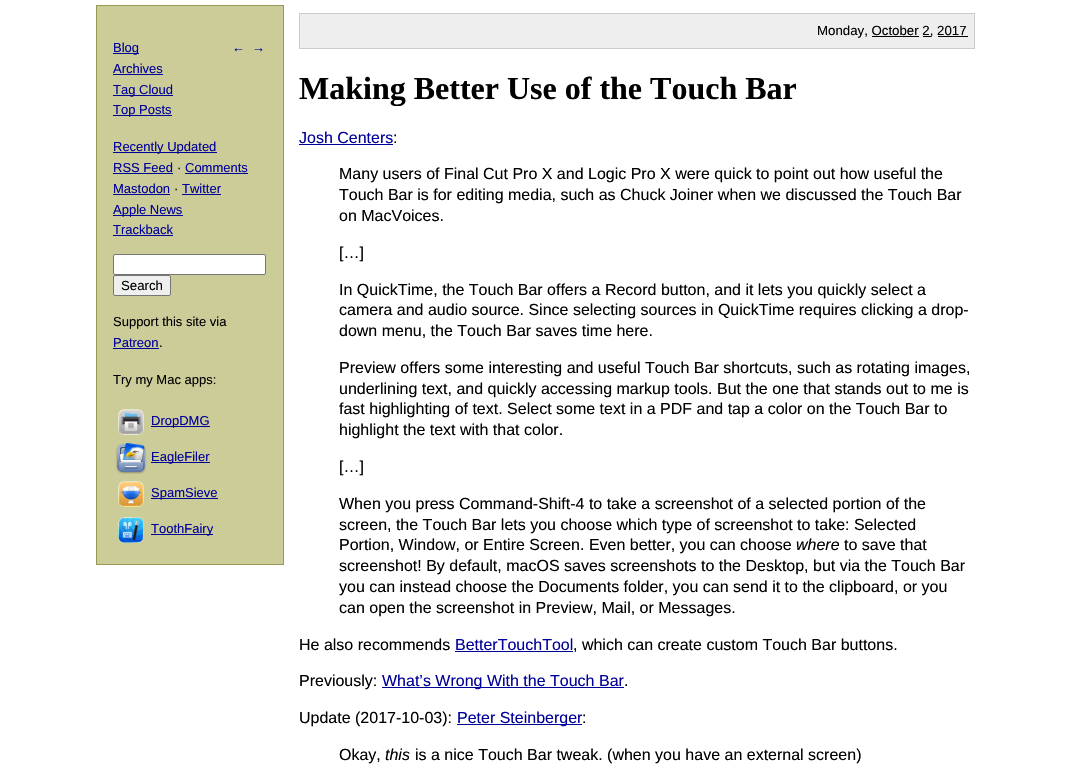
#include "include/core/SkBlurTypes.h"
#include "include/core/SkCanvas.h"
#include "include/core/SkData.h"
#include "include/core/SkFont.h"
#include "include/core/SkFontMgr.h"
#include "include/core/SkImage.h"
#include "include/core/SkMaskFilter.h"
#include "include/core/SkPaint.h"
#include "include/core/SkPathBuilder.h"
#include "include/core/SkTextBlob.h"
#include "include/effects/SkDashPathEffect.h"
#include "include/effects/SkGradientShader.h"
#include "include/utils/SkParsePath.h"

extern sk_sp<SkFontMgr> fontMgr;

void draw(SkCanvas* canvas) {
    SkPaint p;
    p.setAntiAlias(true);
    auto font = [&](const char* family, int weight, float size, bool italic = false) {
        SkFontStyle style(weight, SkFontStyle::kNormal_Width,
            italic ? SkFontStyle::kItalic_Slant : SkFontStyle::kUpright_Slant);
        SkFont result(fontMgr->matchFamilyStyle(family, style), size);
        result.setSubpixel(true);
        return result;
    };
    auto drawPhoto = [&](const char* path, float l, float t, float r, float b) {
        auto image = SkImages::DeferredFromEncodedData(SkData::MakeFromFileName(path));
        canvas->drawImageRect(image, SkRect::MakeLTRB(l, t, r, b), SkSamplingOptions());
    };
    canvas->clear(0xFFFFFFFF);
    p.setColor(0xFFCCCC99);
    canvas->drawRect(SkRect::MakeLTRB(96.5f, 5.5f, 283.5f, 564.5f), p);
    p.setStyle(SkPaint::kStroke_Style);
    p.setStrokeWidth(1);
    p.setColor(0xFF999955);
    canvas->drawRect(SkRect::MakeLTRB(96.5f, 5.5f, 283.5f, 564.5f), p);
    p.setStyle(SkPaint::kFill_Style);
    p.setColor(0xFF000099);
    canvas->drawRect(SkRect::MakeLTRB(113, 53, 139, 54), p);
    auto font1 = font("Liberation Sans", 400, 13);
    canvas->drawString("Blog", 113, 52, font1, p);
    canvas->drawString("Archives", 113, 73, font1, p);
    canvas->drawRect(SkRect::MakeLTRB(113, 74, 163, 75), p);
    canvas->drawRect(SkRect::MakeLTRB(113, 95, 173, 96), p);
    canvas->drawString("Tag Cloud", 113, 94, font1, p);
    canvas->drawRect(SkRect::MakeLTRB(113, 115, 172, 116), p);
    canvas->drawString("Top Posts", 113, 114, font1, p);
    canvas->drawRect(SkRect::MakeLTRB(113, 152, 217, 153), p);
    canvas->drawString("Recently Updated", 113, 151, font1, p);
    canvas->drawString("RSS Feed", 113, 172, font1, p);
    canvas->drawRect(SkRect::MakeLTRB(113, 173, 173, 174), p);
    p.setColor(0xFF000000);
    canvas->drawString("·", 177, 172, font1, p);
    p.setColor(0xFF000099);
    canvas->drawString("Comments", 185, 172, font1, p);
    canvas->drawRect(SkRect::MakeLTRB(185, 173, 248, 174), p);
    canvas->drawString("Mastodon", 113, 193, font1, p);
    canvas->drawRect(SkRect::MakeLTRB(113, 194, 170, 195), p);
    p.setColor(0xFF000000);
    canvas->drawString("·", 174, 193, font1, p);
    p.setColor(0xFF000099);
    canvas->drawString("Twitter", 182, 193, font1, p);
    canvas->drawRect(SkRect::MakeLTRB(182, 194, 221, 195), p);
    canvas->drawRect(SkRect::MakeLTRB(113, 215, 183, 216), p);
    canvas->drawString("Apple News", 113, 214, font1, p);
    canvas->drawString("Trackback", 113, 234, font1, p);
    canvas->drawRect(SkRect::MakeLTRB(113, 235, 173, 236), p);
    canvas->drawString("←", 232, 52, font1, p);
    canvas->drawString("→", 252, 52, font1, p);
    p.setColor(0xFFFFFFFF);
    canvas->drawRoundRect(SkRect::MakeLTRB(113.5f, 254.5f, 265.5f, 274.5f), 1.5f, 1.5f, p);
    p.setStyle(SkPaint::kStroke_Style);
    p.setColor(0xFF767676);
    canvas->drawRoundRect(SkRect::MakeLTRB(113.5f, 254.5f, 265.5f, 274.5f), 1.5f, 1.5f, p);
    p.setStyle(SkPaint::kFill_Style);
    p.setColor(0xFFEFEFEF);
    canvas->drawRoundRect(SkRect::MakeLTRB(113.5f, 275.5f, 170.5f, 295.5f), 1.5f, 1.5f, p);
    p.setStyle(SkPaint::kStroke_Style);
    p.setColor(0xFF767676);
    canvas->drawRoundRect(SkRect::MakeLTRB(113.5f, 275.5f, 170.5f, 295.5f), 1.5f, 1.5f, p);
    auto font2 = font("Liberation Sans", 400, 13.25f);
    p.setStyle(SkPaint::kFill_Style);
    p.setColor(0xFF000000);
    canvas->drawString("Search", 121, 290, font2, p);
    canvas->drawString("Support this site via", 113, 326, font1, p);
    p.setColor(0xFF000099);
    canvas->drawString("Patreon", 113, 347, font1, p);
    canvas->drawRect(SkRect::MakeLTRB(113, 348, 159, 349), p);
    p.setColor(0xFF000000);
    canvas->drawString(".", 159, 347, font1, p);
    canvas->drawString("Try my Mac apps:", 113, 384, font1, p);
    drawPhoto("media/1.png", 118, 409, 144, 435);
    p.setColor(0xFF000099);
    canvas->drawRect(SkRect::MakeLTRB(151, 426, 210, 427), p);
    canvas->drawString("DropDMG", 151, 425, font1, p);
    drawPhoto("media/2.png", 115, 443, 147, 474);
    canvas->drawRect(SkRect::MakeLTRB(151, 462, 210, 463), p);
    canvas->drawString("EagleFiler", 151, 461, font1, p);
    drawPhoto("media/3.png", 118, 481, 144, 507);
    canvas->drawRect(SkRect::MakeLTRB(151, 498, 218, 499), p);
    canvas->drawString("SpamSieve", 151, 497, font1, p);
    drawPhoto("media/4.png", 118, 517, 144, 543);
    canvas->drawRect(SkRect::MakeLTRB(151, 534, 213, 535), p);
    canvas->drawString("ToothFairy", 151, 533, font1, p);
    p.setColor(0xFFEEEEEE);
    canvas->drawRect(SkRect::MakeLTRB(299.5f, 13.5f, 974.5f, 48.5f), p);
    p.setStyle(SkPaint::kStroke_Style);
    p.setColor(0xFFCCCCCC);
    canvas->drawRect(SkRect::MakeLTRB(299.5f, 13.5f, 974.5f, 48.5f), p);
    p.setStyle(SkPaint::kFill_Style);
    p.setColor(0xFF000000);
    canvas->drawString("Monday, October 2, 2017", 817, 35, font2, p);
    {
        const struct { float l, t, r, b; SkColor color; } items[] = {
            {872, 36, 919, 37, 0xFF000000},
            {923, 36, 931, 37, 0xFF000000},
            {938, 36, 968, 37, 0xFF000000},
        };
        for (auto [l, t, r, b, color] : items) {
            p.setColor(color);
            canvas->drawRect(SkRect::MakeLTRB(l, t, r, b), p);
        }
    }
    auto font3 = font("Liberation Serif", 700, 32);
    canvas->drawString("Making Better Use of the Touch Bar", 299, 99, font3, p);
    auto font4 = font("Liberation Sans", 400, 16);
    p.setColor(0xFF000099);
    canvas->drawString("Josh Centers", 299, 143, font4, p);
    canvas->drawRect(SkRect::MakeLTRB(299, 144, 393, 145), p);
    p.setColor(0xFF000000);
    {
        const struct { const char* s; float x, y; } items[] = {
            {":", 393, 143},
            {"Many users of Final Cut Pro X and Logic Pro X were quick to point out how useful the", 339, 179},
            {"Touch Bar is for editing media, such as Chuck Joiner when we discussed the Touch Bar", 339, 200},
            {"on MacVoices.", 339, 221},
            {"[…]", 339, 258},
            {"In QuickTime, the Touch Bar offers a Record button, and it lets you quickly select a", 339, 295},
            {"camera and audio source. Since selecting sources in QuickTime requires clicking a drop-", 339, 315},
            {"down menu, the Touch Bar saves time here.", 339, 336},
            {"Preview offers some interesting and useful Touch Bar shortcuts, such as rotating images,", 339, 373},
            {"underlining text, and quickly accessing markup tools. But the one that stands out to me is", 339, 394},
            {"fast highlighting of text. Select some text in a PDF and tap a color on the Touch Bar to", 339, 414},
            {"highlight the text with that color.", 339, 435},
            {"[…]", 339, 472},
            {"When you press Command-Shift-4 to take a screenshot of a selected portion of the", 339, 509},
            {"screen, the Touch Bar lets you choose which type of screenshot to take: Selected", 339, 530},
            {"Portion, Window, or Entire Screen. Even better, you can choose", 339, 550},
        };
        for (auto [s, x, y] : items) {
            canvas->drawString(s, x, y, font4, p);
        }
    }
    auto font5 = font("Liberation Sans", 400, 16, true);
    canvas->drawString("where", 796, 550, font5, p);
    {
        const struct { const char* s; float x, y; } items[] = {
            {"to save that", 844, 550},
            {"screenshot! By default, macOS saves screenshots to the Desktop, but via the Touch Bar", 339, 571},
            {"you can instead choose the Documents folder, you can send it to the clipboard, or you", 339, 592},
            {"can open the screenshot in Preview, Mail, or Messages.", 339, 613},
            {"He also recommends", 299, 650},
        };
        for (auto [s, x, y] : items) {
            canvas->drawString(s, x, y, font4, p);
        }
    }
    p.setColor(0xFF000099);
    canvas->drawString("BetterTouchTool", 455, 650, font4, p);
    canvas->drawRect(SkRect::MakeLTRB(455, 651, 573, 652), p);
    p.setColor(0xFF000000);
    canvas->drawString(", which can create custom Touch Bar buttons.", 573, 650, font4, p);
    canvas->drawString("Previously:", 299, 686, font4, p);
    p.setColor(0xFF000099);
    canvas->drawRect(SkRect::MakeLTRB(382, 687, 624, 688), p);
    canvas->drawString("What’s Wrong With the Touch Bar", 382, 686, font4, p);
    p.setColor(0xFF000000);
    canvas->drawString(".", 624, 686, font4, p);
    canvas->drawString("Update (2017-10-03):", 299, 723, font4, p);
    p.setColor(0xFF000099);
    canvas->drawRect(SkRect::MakeLTRB(457, 724, 582, 725), p);
    canvas->drawString("Peter Steinberger", 457, 723, font4, p);
    p.setColor(0xFF000000);
    canvas->drawString(":", 582, 723, font4, p);
    canvas->drawString("Okay,", 339, 760, font4, p);
    canvas->drawString("this", 385, 760, font5, p);
    canvas->drawString("is a nice Touch Bar tweak. (when you have an external screen)", 415, 760, font4, p);
}
